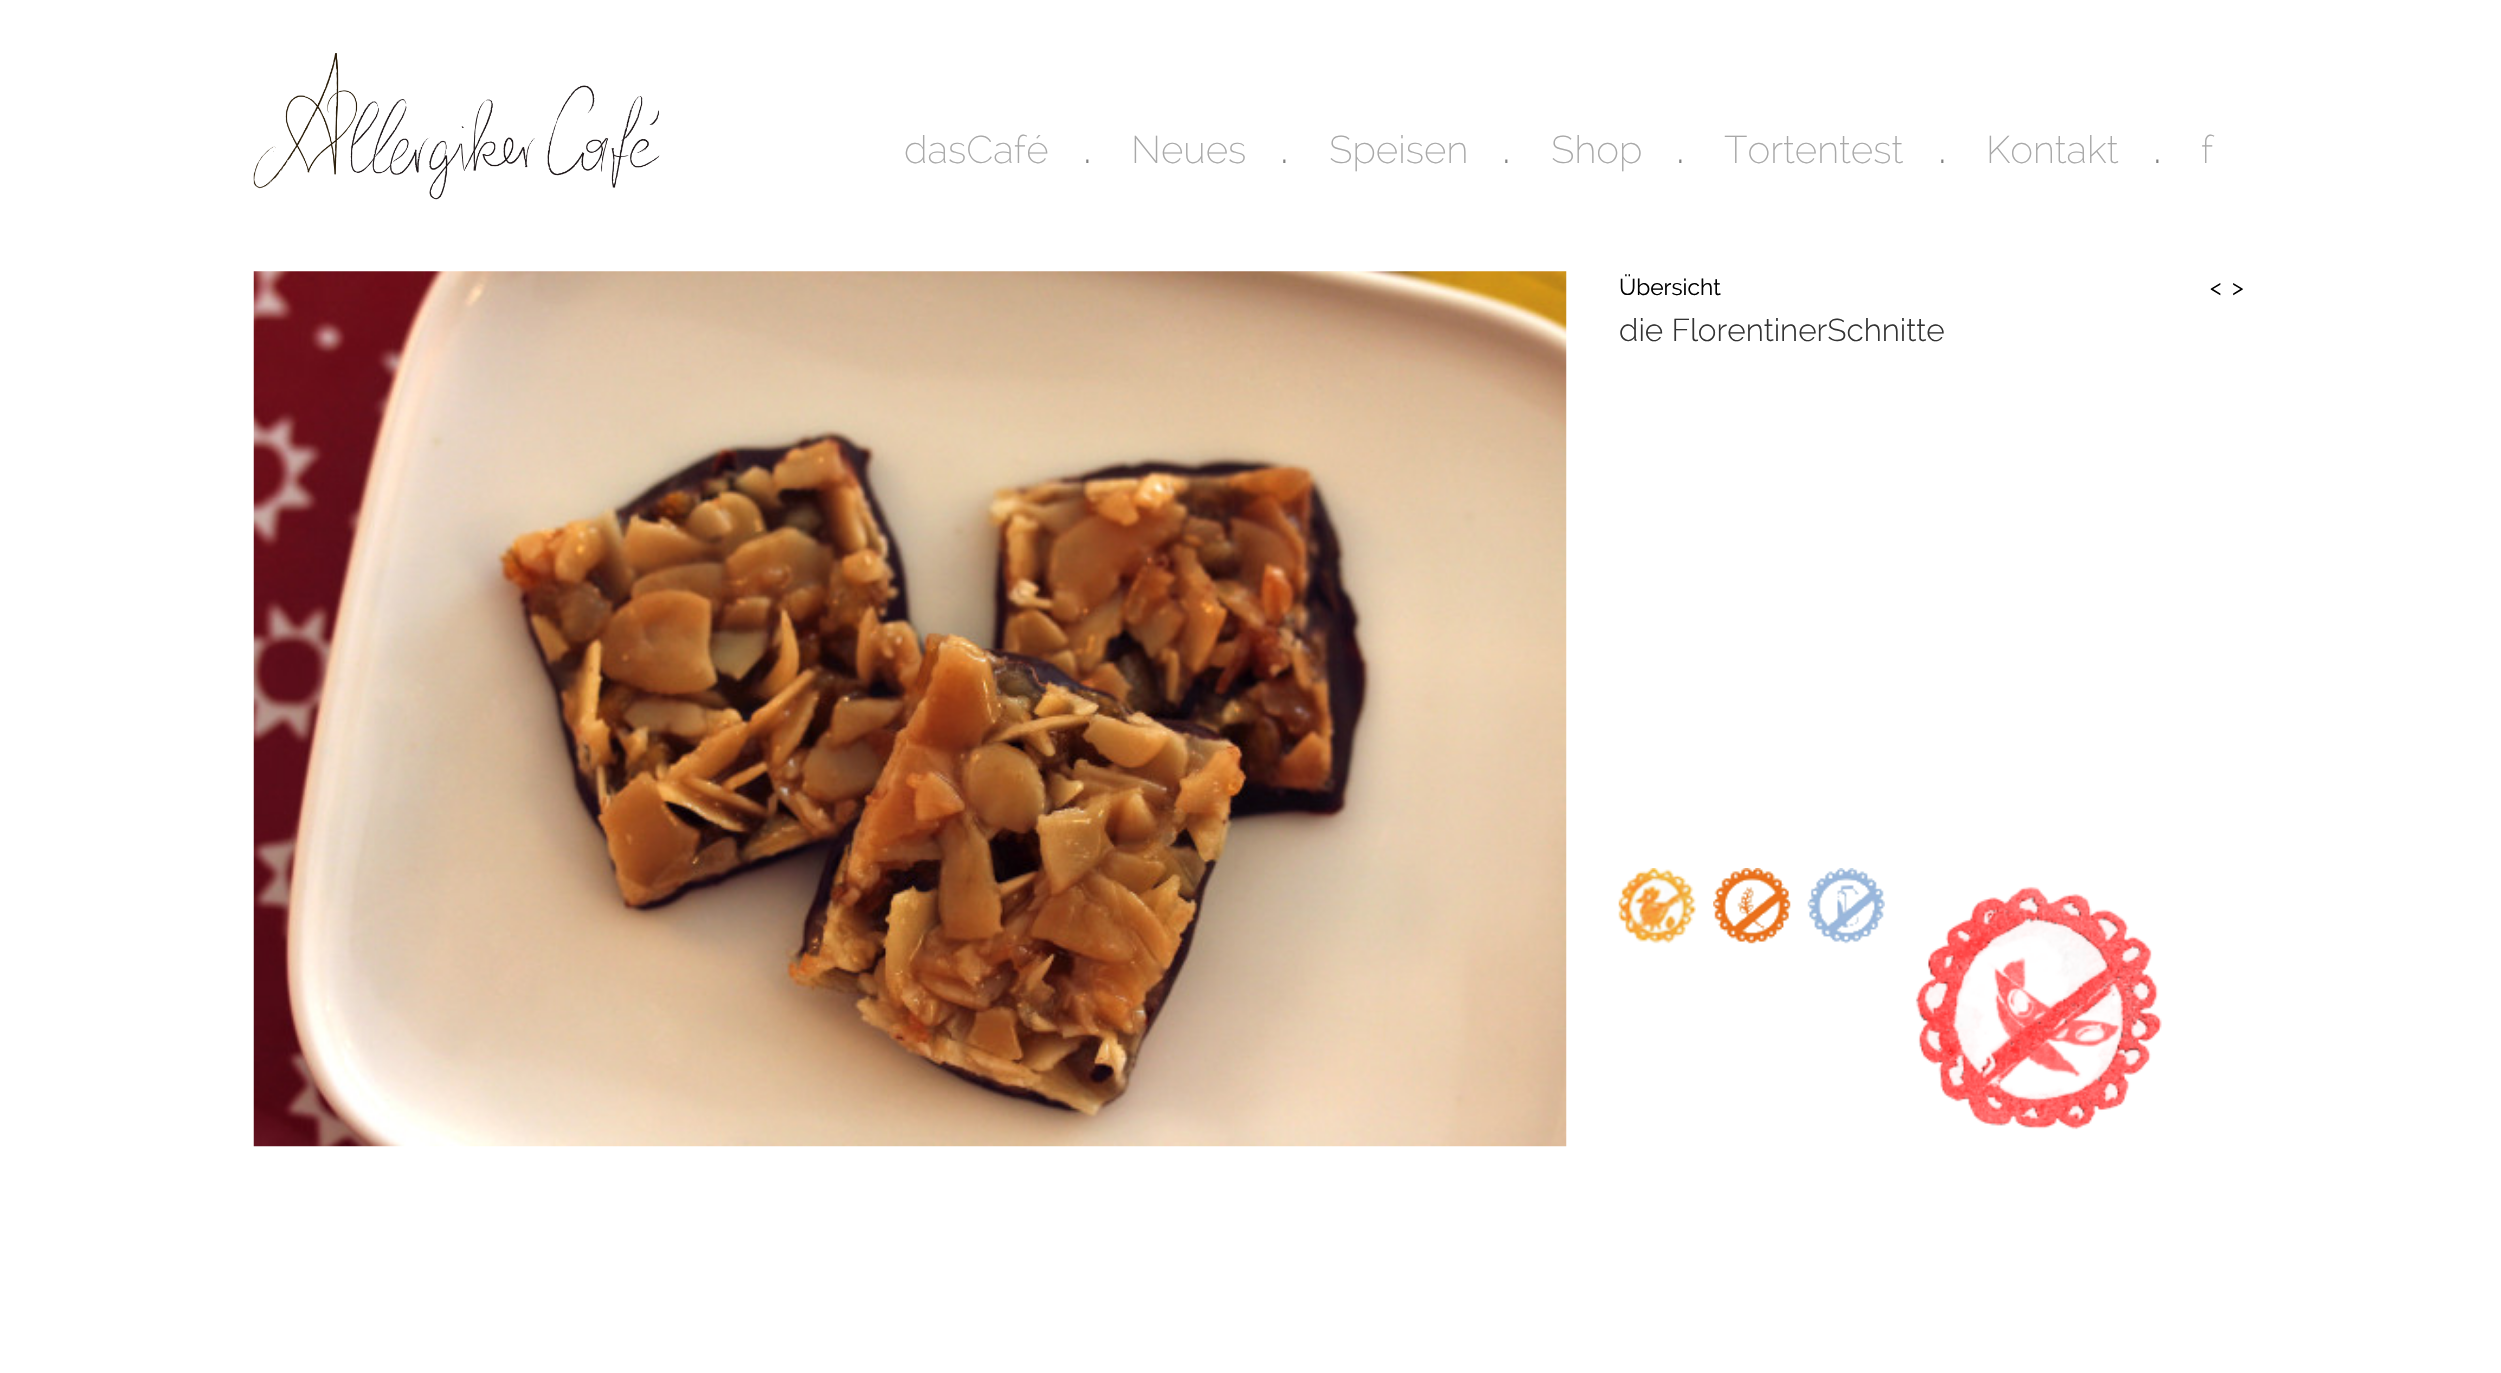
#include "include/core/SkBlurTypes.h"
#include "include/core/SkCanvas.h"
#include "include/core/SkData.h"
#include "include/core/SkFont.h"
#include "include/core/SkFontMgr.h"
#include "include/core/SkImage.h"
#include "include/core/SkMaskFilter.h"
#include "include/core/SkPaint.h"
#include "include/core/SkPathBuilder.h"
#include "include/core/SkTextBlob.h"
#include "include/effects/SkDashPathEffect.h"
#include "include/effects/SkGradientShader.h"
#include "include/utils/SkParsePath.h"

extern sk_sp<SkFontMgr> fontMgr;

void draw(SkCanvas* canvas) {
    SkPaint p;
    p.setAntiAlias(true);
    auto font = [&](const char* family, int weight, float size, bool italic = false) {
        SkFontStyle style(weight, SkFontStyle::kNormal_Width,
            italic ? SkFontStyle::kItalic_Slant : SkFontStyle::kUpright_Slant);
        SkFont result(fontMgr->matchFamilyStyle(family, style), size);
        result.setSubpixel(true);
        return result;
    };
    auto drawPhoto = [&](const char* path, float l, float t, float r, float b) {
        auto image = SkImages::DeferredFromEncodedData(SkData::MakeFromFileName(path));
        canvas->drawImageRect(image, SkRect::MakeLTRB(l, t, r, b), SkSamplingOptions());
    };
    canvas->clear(0xFFFFFFFF);
    drawPhoto("media/1.png", 253, 53, 660, 200);
    auto font1 = font("Raleway", 200, 38.5f);
    p.setColor(0xFFA8A8A8);
    canvas->drawString("dasCafé", 904, 163, font1, p);
    auto font2 = font("Raleway", 400, 35);
    p.setColor(0xFF808080);
    canvas->drawString(".", 1084, 163, font2, p);
    p.setColor(0xFFA8A8A8);
    canvas->drawString("Neues", 1131, 163, font1, p);
    p.setColor(0xFF808080);
    canvas->drawString(".", 1281, 163, font2, p);
    p.setColor(0xFFA8A8A8);
    canvas->drawString("Speisen", 1329, 163, font1, p);
    p.setColor(0xFF808080);
    canvas->drawString(".", 1503, 163, font2, p);
    p.setColor(0xFFA8A8A8);
    canvas->drawString("Shop", 1551, 163, font1, p);
    p.setColor(0xFF808080);
    canvas->drawString(".", 1677, 163, font2, p);
    p.setColor(0xFFA8A8A8);
    canvas->drawString("Tortentest", 1724, 163, font1, p);
    p.setColor(0xFF808080);
    canvas->drawString(".", 1939, 163, font2, p);
    p.setColor(0xFFA8A8A8);
    canvas->drawString("Kontakt", 1986, 163, font1, p);
    p.setColor(0xFF808080);
    canvas->drawString(".", 2154, 163, font2, p);
    p.setColor(0xFFA8A8A8);
    canvas->drawString("f", 2201, 163, font1, p);
    drawPhoto("media/2.png", 253, 271, 1567, 1147);
    auto font3 = font("Raleway", 400, 22.75f);
    p.setColor(0xFF000000);
    {
        const struct { const char* s; float x, y; } items[] = {
            {"Übersicht", 1619, 295},
            {"<", 2210, 295},
            {">", 2232, 295},
        };
        for (auto [s, x, y] : items) {
            canvas->drawString(s, x, y, font3, p);
        }
    }
    auto font4 = font("Raleway", 300, 31.5f);
    p.setColor(0xFF333333);
    canvas->drawString("die FlorentinerSchnitte", 1619, 341, font4, p);
    drawPhoto("media/3.png", 1618, 868, 1696, 944);
    drawPhoto("media/4.png", 1713, 868, 1791, 944);
    drawPhoto("media/5.png", 1807, 868, 1885, 944);
    drawPhoto("media/6.png", 1915, 886, 2162, 1130);
}
